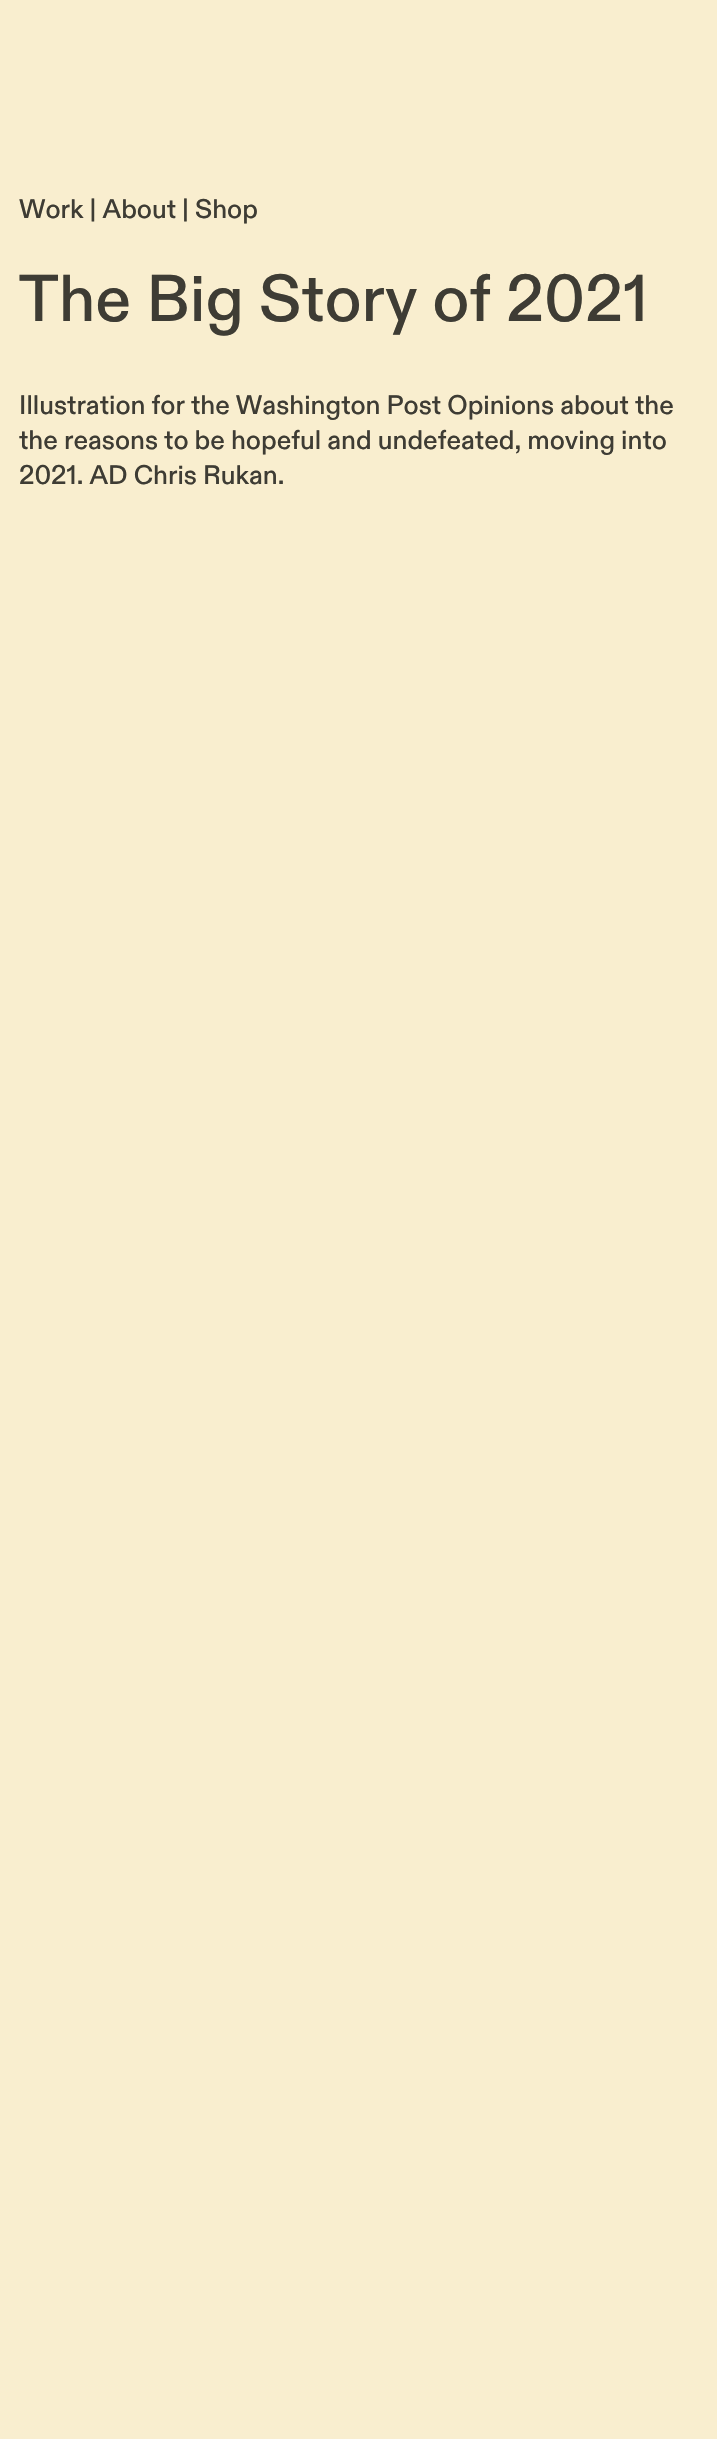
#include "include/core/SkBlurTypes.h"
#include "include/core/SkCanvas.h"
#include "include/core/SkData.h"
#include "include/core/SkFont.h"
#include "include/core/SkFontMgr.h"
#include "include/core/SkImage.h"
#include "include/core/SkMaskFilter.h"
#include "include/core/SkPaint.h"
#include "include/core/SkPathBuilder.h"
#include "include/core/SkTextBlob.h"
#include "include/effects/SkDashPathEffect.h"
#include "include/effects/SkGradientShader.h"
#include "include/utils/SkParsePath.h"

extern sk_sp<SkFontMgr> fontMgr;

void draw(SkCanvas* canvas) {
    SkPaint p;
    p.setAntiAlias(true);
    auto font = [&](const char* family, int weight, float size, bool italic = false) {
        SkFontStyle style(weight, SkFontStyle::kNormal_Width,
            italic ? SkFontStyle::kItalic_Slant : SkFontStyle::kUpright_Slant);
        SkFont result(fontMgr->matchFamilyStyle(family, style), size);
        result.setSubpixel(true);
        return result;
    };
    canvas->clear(0xFFF9EECF);
    auto font1 = font("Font", 500, 26.8f);
    p.setColor(0xFF3E3C34);
    canvas->drawString("Work | About", 19, 218, font1, p);
    canvas->drawString("| Shop", 182, 218, font1, p);
    auto font2 = font("Font", 500, 66);
    canvas->drawString("The Big Story of 2021", 19, 321, font2, p);
    {
        const struct { const char* s; float x, y; } items[] = {
            {"Illustration for the Washington Post Opinions about the", 19, 414},
            {"the reasons to be hopeful and undefeated, moving into", 19, 449},
            {"2021. AD Chris Rukan.", 19, 484},
        };
        for (auto [s, x, y] : items) {
            canvas->drawString(s, x, y, font1, p);
        }
    }
}
